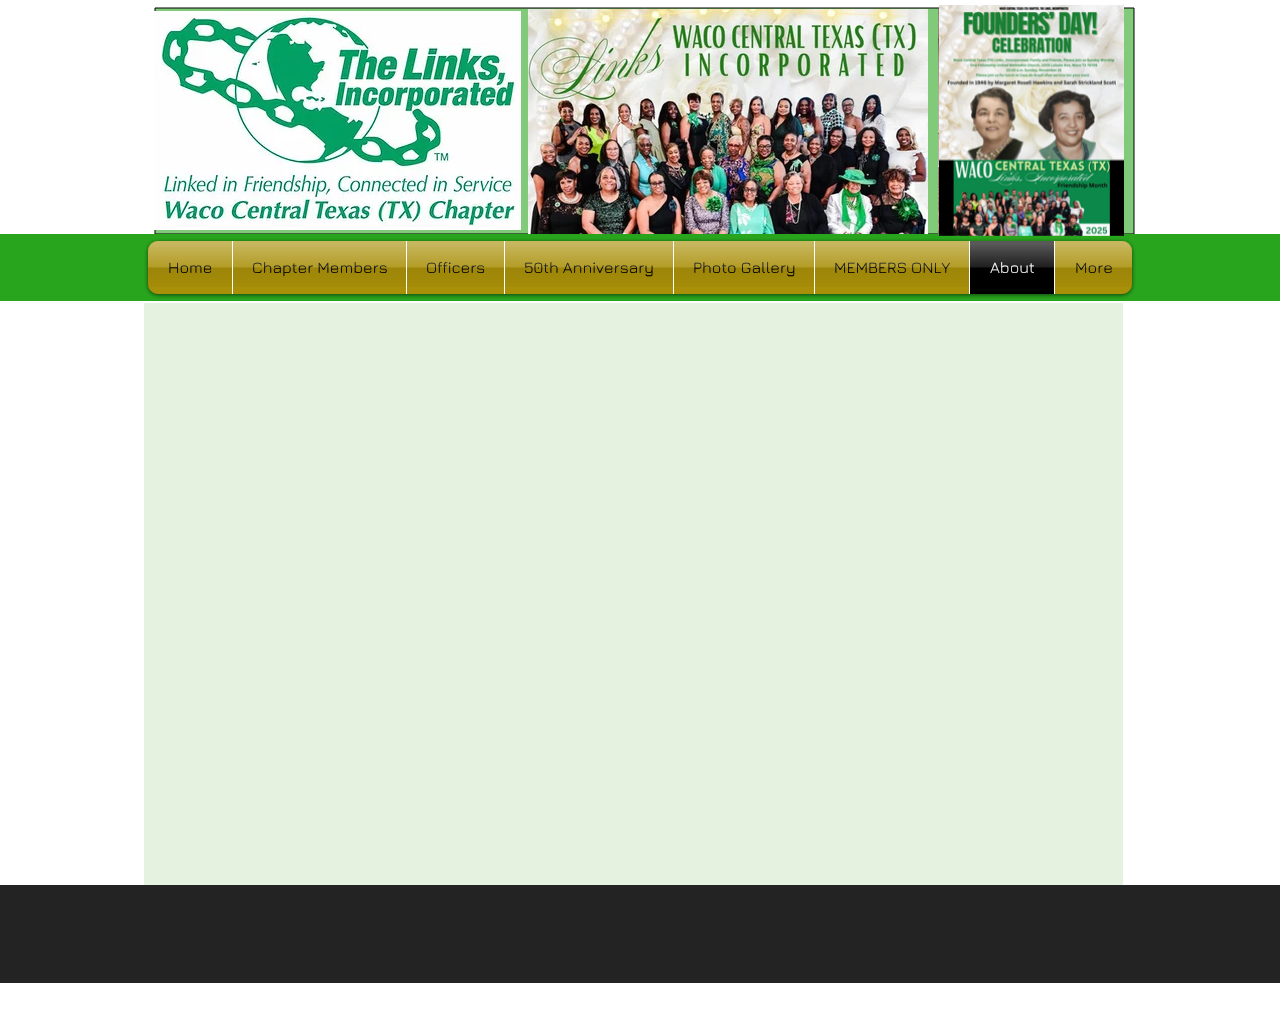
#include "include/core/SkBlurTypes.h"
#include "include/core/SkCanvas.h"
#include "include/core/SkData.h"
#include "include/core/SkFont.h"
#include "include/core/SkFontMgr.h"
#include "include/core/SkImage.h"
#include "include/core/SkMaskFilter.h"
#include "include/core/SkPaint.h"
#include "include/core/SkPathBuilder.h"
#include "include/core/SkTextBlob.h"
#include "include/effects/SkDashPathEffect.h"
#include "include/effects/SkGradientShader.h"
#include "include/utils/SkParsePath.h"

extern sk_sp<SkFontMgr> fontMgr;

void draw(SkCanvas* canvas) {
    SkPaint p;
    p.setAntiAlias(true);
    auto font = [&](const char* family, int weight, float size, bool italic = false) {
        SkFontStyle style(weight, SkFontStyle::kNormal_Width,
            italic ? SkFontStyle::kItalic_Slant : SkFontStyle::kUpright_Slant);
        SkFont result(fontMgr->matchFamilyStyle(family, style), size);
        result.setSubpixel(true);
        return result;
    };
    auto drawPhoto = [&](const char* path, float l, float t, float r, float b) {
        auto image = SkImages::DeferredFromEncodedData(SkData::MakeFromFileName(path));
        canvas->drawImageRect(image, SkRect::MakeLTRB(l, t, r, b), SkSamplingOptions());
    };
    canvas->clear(0xFFFFFFFF);
    p.setColor(0xFF80CA7A);
    canvas->drawRect(SkRect::MakeLTRB(155, 8, 1134, 234), p);
    p.setStyle(SkPaint::kStroke_Style);
    p.setStrokeWidth(1);
    p.setColor(0xFF000000);
    canvas->drawPath(SkPathBuilder().moveTo(1134, 8).lineTo(1134, 234).lineTo(155, 234).lineTo(155, 8).close().detach(), p);
    p.setStyle(SkPaint::kFill_Style);
    p.setColor(0xFF28A51D);
    canvas->drawRect(SkRect::MakeLTRB(0, 234, 1280, 301), p);
    p.setColor(0x99000000);
    p.setMaskFilter(SkMaskFilter::MakeBlur(kNormal_SkBlurStyle, 2));
    canvas->drawRoundRect(SkRect::MakeLTRB(148, 242, 1132, 295), 10, 10, p);
    p.setMaskFilter(nullptr);
    drawPhoto("media/1.png", 939, 5, 1124, 236);
    drawPhoto("media/2.png", 154, 11, 521, 230);
    drawPhoto("media/3.png", 528, 9, 928, 234);
    drawPhoto("media/4.png", 938, 9, 939, 234);
    drawPhoto("media/5.png", 148, 241, 1132, 285);
    p.setColor(0xFFA99009);
    canvas->drawPath(SkPathBuilder().moveTo(158, 241).lineTo(232, 241).lineTo(232, 294).lineTo(158, 294).cubicTo(152.5f, 294, 148, 289.5f, 148, 284).lineTo(148, 251).cubicTo(148, 245.5f, 152.5f, 241, 158, 241).close().detach(), p);
    auto font1 = font("Jura", 400, 16);
    p.setColor(0xFF000000);
    canvas->drawString("Home", 168, 273, font1, p);
    drawPhoto("media/6.png", 148, 241, 232, 287);
    p.setColor(0xFFA99009);
    canvas->drawRect(SkRect::MakeLTRB(233, 241, 406, 294), p);
    p.setColor(0xFFFFFFFF);
    canvas->drawRect(SkRect::MakeLTRB(232, 241, 233, 294), p);
    p.setColor(0xFF000000);
    canvas->drawString("Chapter Members", 252, 273, font1, p);
    drawPhoto("media/7.png", 233, 241, 406, 287);
    p.setColor(0xFFA99009);
    canvas->drawRect(SkRect::MakeLTRB(407, 241, 504, 294), p);
    p.setColor(0xFFFFFFFF);
    canvas->drawRect(SkRect::MakeLTRB(406, 241, 407, 294), p);
    p.setColor(0xFF000000);
    canvas->drawString("Officers", 426, 273, font1, p);
    drawPhoto("media/8.png", 407, 241, 504, 287);
    p.setColor(0xFFA99009);
    canvas->drawRect(SkRect::MakeLTRB(505, 241, 673, 294), p);
    p.setColor(0xFFFFFFFF);
    canvas->drawRect(SkRect::MakeLTRB(504, 241, 505, 294), p);
    p.setColor(0xFF000000);
    canvas->drawString("50th Anniversary", 524, 273, font1, p);
    drawPhoto("media/9.png", 505, 241, 673, 287);
    p.setColor(0xFFA99009);
    canvas->drawRect(SkRect::MakeLTRB(674, 241, 814, 294), p);
    p.setColor(0xFFFFFFFF);
    canvas->drawRect(SkRect::MakeLTRB(673, 241, 674, 294), p);
    p.setColor(0xFF000000);
    canvas->drawString("Photo Gallery", 693, 273, font1, p);
    drawPhoto("media/10.png", 674, 241, 814, 287);
    p.setColor(0xFFA99009);
    canvas->drawRect(SkRect::MakeLTRB(815, 241, 969, 294), p);
    p.setColor(0xFFFFFFFF);
    canvas->drawRect(SkRect::MakeLTRB(814, 241, 815, 294), p);
    p.setColor(0xFF000000);
    canvas->drawString("MEMBERS ONLY", 834, 273, font1, p);
    drawPhoto("media/11.png", 815, 241, 969, 287);
    canvas->drawRect(SkRect::MakeLTRB(970, 241, 1054, 294), p);
    p.setColor(0xFFFFFFFF);
    canvas->drawRect(SkRect::MakeLTRB(969, 241, 970, 294), p);
    canvas->drawString("About", 990, 273, font1, p);
    drawPhoto("media/12.png", 970, 241, 1054, 273);
    p.setColor(0xFFA99009);
    canvas->drawPath(SkPathBuilder().moveTo(1054, 241).lineTo(1122, 241).cubicTo(1127.5f, 241, 1132, 245.5f, 1132, 251).lineTo(1132, 284).cubicTo(1132, 289.5f, 1127.5f, 294, 1122, 294).lineTo(1054, 294).close().detach(), p);
    p.setColor(0xFFFFFFFF);
    canvas->drawRect(SkRect::MakeLTRB(1054, 241, 1055, 294), p);
    p.setColor(0xFF000000);
    canvas->drawString("More", 1075, 273, font1, p);
    drawPhoto("media/13.png", 1055, 241, 1132, 287);
    p.setColor(0xFFE5F2E0);
    canvas->drawRect(SkRect::MakeLTRB(144, 303, 1123, 885), p);
    p.setColor(0xFF242323);
    canvas->drawRect(SkRect::MakeLTRB(0, 885, 1280, 983), p);
}
